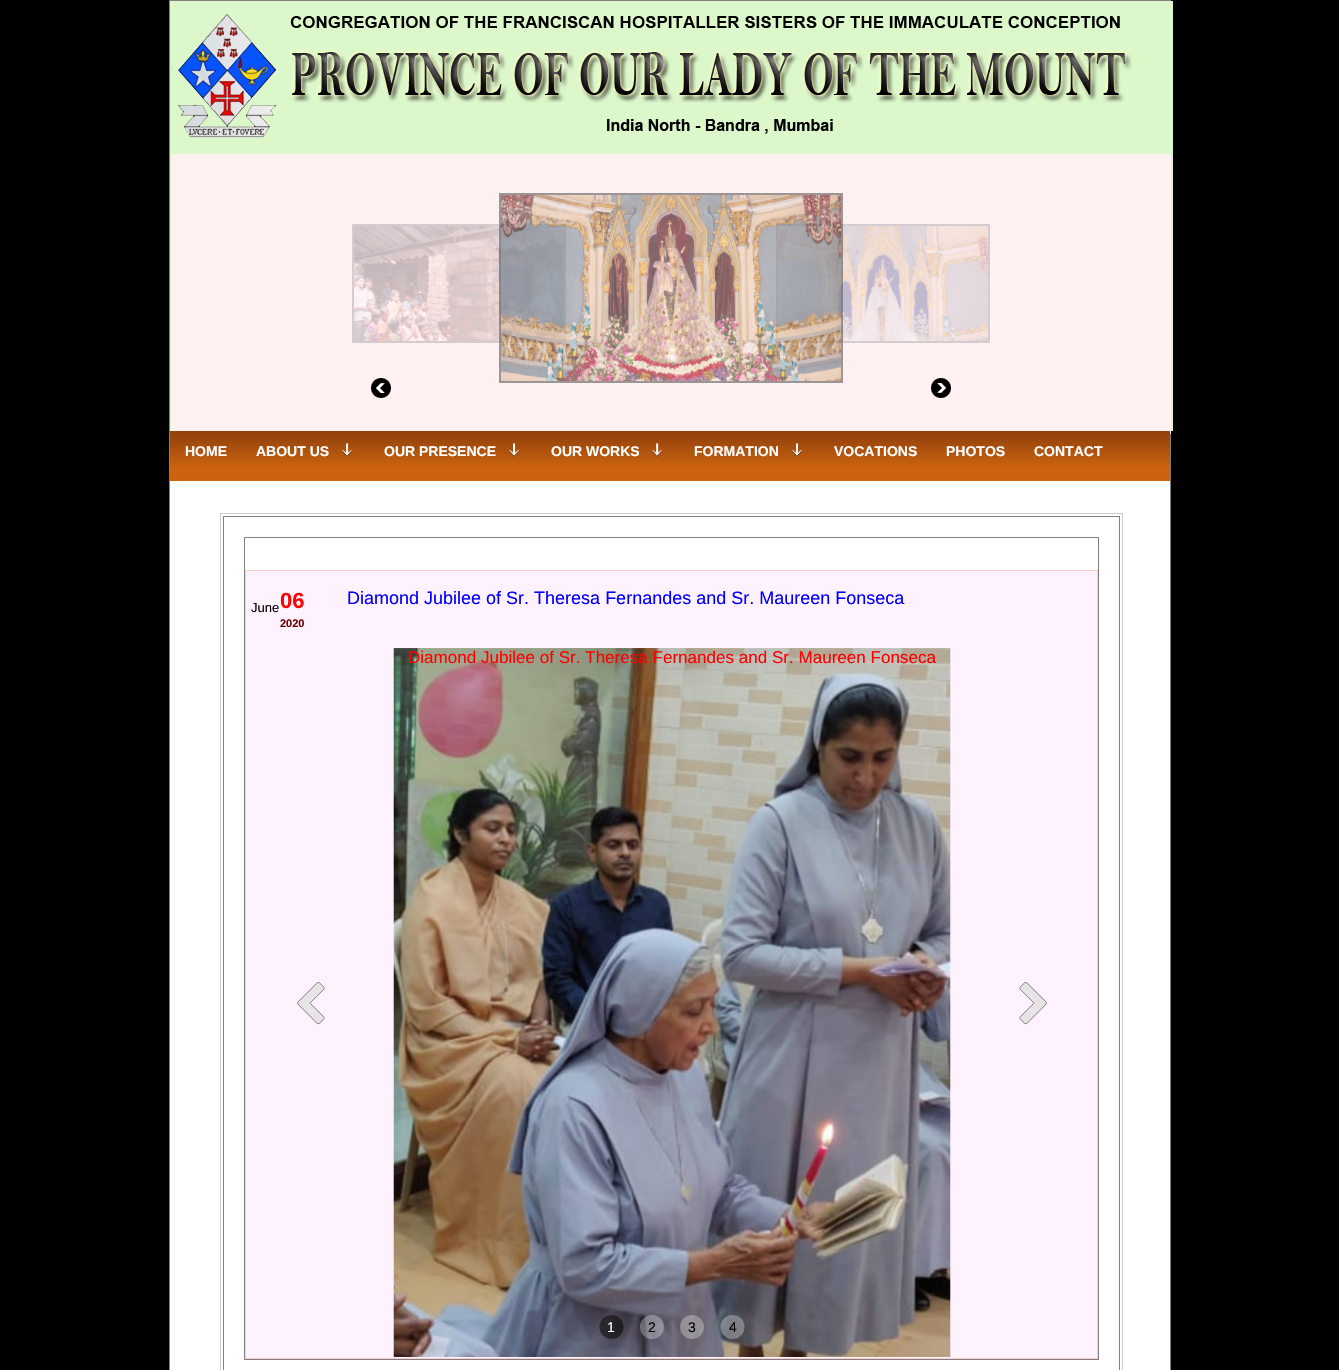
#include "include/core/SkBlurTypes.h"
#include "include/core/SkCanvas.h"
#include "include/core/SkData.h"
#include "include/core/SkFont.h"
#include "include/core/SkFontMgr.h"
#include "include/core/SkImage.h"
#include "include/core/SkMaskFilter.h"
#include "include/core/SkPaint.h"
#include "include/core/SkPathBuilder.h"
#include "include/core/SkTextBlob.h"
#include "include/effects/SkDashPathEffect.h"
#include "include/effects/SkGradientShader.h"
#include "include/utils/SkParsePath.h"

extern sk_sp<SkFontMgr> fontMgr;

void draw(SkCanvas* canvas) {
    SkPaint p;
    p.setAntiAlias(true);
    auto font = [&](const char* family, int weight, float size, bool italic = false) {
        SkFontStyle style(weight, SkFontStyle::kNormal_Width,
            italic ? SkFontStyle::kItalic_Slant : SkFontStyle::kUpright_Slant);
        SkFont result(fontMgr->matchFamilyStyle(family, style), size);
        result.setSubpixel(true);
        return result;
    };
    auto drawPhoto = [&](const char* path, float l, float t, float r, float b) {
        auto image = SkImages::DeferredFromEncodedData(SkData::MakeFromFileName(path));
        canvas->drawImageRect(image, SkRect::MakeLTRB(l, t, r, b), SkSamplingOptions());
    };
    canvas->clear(0xFF000000);
    p.setColor(0xFFFFFFFF);
    canvas->drawRect(SkRect::MakeLTRB(170, 481, 1170, 1370), p);
    p.setStyle(SkPaint::kStroke_Style);
    p.setStrokeWidth(1);
    p.setColor(0xFF808080);
    canvas->drawRect(SkRect::MakeLTRB(169.5f, 0.5f, 1170.5f, 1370.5f), p);
    p.setStyle(SkPaint::kFill_Style);
    p.setColor(0xFFDCF8CB);
    canvas->drawRect(SkRect::MakeLTRB(170, 1, 1173, 431), p);
    drawPhoto("media/1.png", 171, 14, 277, 138);
    drawPhoto("media/2.png", 290, 16, 1132, 134);
    p.setColor(0xFFFFF0F2);
    canvas->drawRect(SkRect::MakeLTRB(171, 154, 1171, 434), p);
    p.setStyle(SkPaint::kStroke_Style);
    p.setStrokeWidth(2);
    p.setColor(0xFFD7CCCD);
    canvas->drawRect(SkRect::MakeLTRB(353, 225, 565, 342), p);
    drawPhoto("media/3.png", 354, 226, 564, 341);
    canvas->drawRect(SkRect::MakeLTRB(777, 225, 989, 342), p);
    drawPhoto("media/5.png", 778, 226, 988, 341);
    p.setColor(0x9E5D5D5D);
    canvas->drawRect(SkRect::MakeLTRB(500, 194, 842, 382), p);
    drawPhoto("media/4.png", 501, 195, 841, 381);
    drawPhoto("media/6.png", 371, 378, 391, 398);
    drawPhoto("media/7.png", 931, 378, 951, 398);
    drawPhoto("media/8.png", 170, 431, 1170, 481);
    auto font1 = font("Liberation Sans", 700, 14);
    p.setStyle(SkPaint::kFill_Style);
    p.setColor(0xFFFFFFFF);
    canvas->drawString("HOME", 185, 456, font1, p);
    drawPhoto("media/9.png", 342, 443, 353, 457);
    canvas->drawString("ABOUT US", 256, 456, font1, p);
    drawPhoto("media/9.png", 509, 443, 520, 457);
    canvas->drawString("OUR PRESENCE", 384, 456, font1, p);
    drawPhoto("media/10.png", 652, 443, 663, 457);
    canvas->drawString("OUR WORKS", 551, 456, font1, p);
    drawPhoto("media/11.png", 792, 443, 802, 457);
    {
        const struct { const char* s; float x, y; } items[] = {
            {"FORMATION", 694, 456},
            {"VOCATIONS", 834, 456},
            {"PHOTOS", 946, 456},
            {"CONTACT", 1034, 456},
        };
        for (auto [s, x, y] : items) {
            canvas->drawString(s, x, y, font1, p);
        }
    }
    p.setStyle(SkPaint::kStroke_Style);
    p.setStrokeWidth(1);
    p.setColor(0xFFCCCCCC);
    canvas->drawRect(SkRect::MakeLTRB(220.5f, 513.5f, 1122.5f, 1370.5f), p);
    p.setColor(0xFF808080);
    canvas->drawRect(SkRect::MakeLTRB(223.5f, 516.5f, 1119.5f, 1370.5f), p);
    canvas->drawRect(SkRect::MakeLTRB(244.5f, 537.5f, 1098.5f, 1359.5f), p);
    p.setStyle(SkPaint::kFill_Style);
    p.setColor(0xFFFFF2FF);
    canvas->drawRect(SkRect::MakeLTRB(245.5f, 570.5f, 1097.5f, 1358.5f), p);
    p.setStyle(SkPaint::kStroke_Style);
    p.setColor(0xFFFFCCCC);
    canvas->drawRect(SkRect::MakeLTRB(245.5f, 570.5f, 1097.5f, 1358.5f), p);
    auto font2 = font("Liberation Sans", 400, 13);
    p.setStyle(SkPaint::kFill_Style);
    p.setColor(0xFF000000);
    canvas->drawString("June", 251, 612, font2, p);
    auto font3 = font("Liberation Sans", 700, 22);
    p.setColor(0xFFFF0000);
    canvas->drawString("06", 280, 608, font3, p);
    auto font4 = font("Liberation Sans", 700, 11);
    p.setColor(0xFF660000);
    canvas->drawString("2020", 280, 627, font4, p);
    auto font5 = font("Liberation Sans", 400, 18);
    p.setColor(0xFF0000FF);
    canvas->drawString("Diamond Jubilee of Sr. Theresa Fernandes and Sr. Maureen Fonseca", 347, 604, font5, p);
    drawPhoto("media/12.png", 393, 648, 951, 1357);
    auto font6 = font("Liberation Sans", 400, 17.05f);
    p.setColor(0xFFFF0000);
    canvas->drawString("Diamond Jubilee of Sr. Theresa Fernandes and Sr. Maureen Fonseca", 408, 663, font6, p);
    drawPhoto("media/13.png", 297, 982, 325, 1025);
    drawPhoto("media/14.png", 1019, 982, 1047, 1025);
    p.setColor(0x80000000);
    canvas->drawCircle(611.5f, 1327, 12, p);
    auto font7 = font("Liberation Sans", 400, 14);
    p.setColor(0xFFFFFFFF);
    canvas->drawString("1", 607, 1332, font7, p);
    p.setColor(0x4DFFFFFF);
    canvas->drawCircle(652, 1327, 12, p);
    p.setColor(0xFF000000);
    canvas->drawString("2", 648, 1332, font7, p);
    p.setColor(0x4DFFFFFF);
    canvas->drawCircle(692, 1327, 12, p);
    p.setColor(0xFF000000);
    canvas->drawString("3", 688, 1332, font7, p);
    p.setColor(0x4DFFFFFF);
    canvas->drawCircle(732.5f, 1327, 12, p);
    p.setColor(0xFF000000);
    canvas->drawString("4", 729, 1332, font7, p);
}
